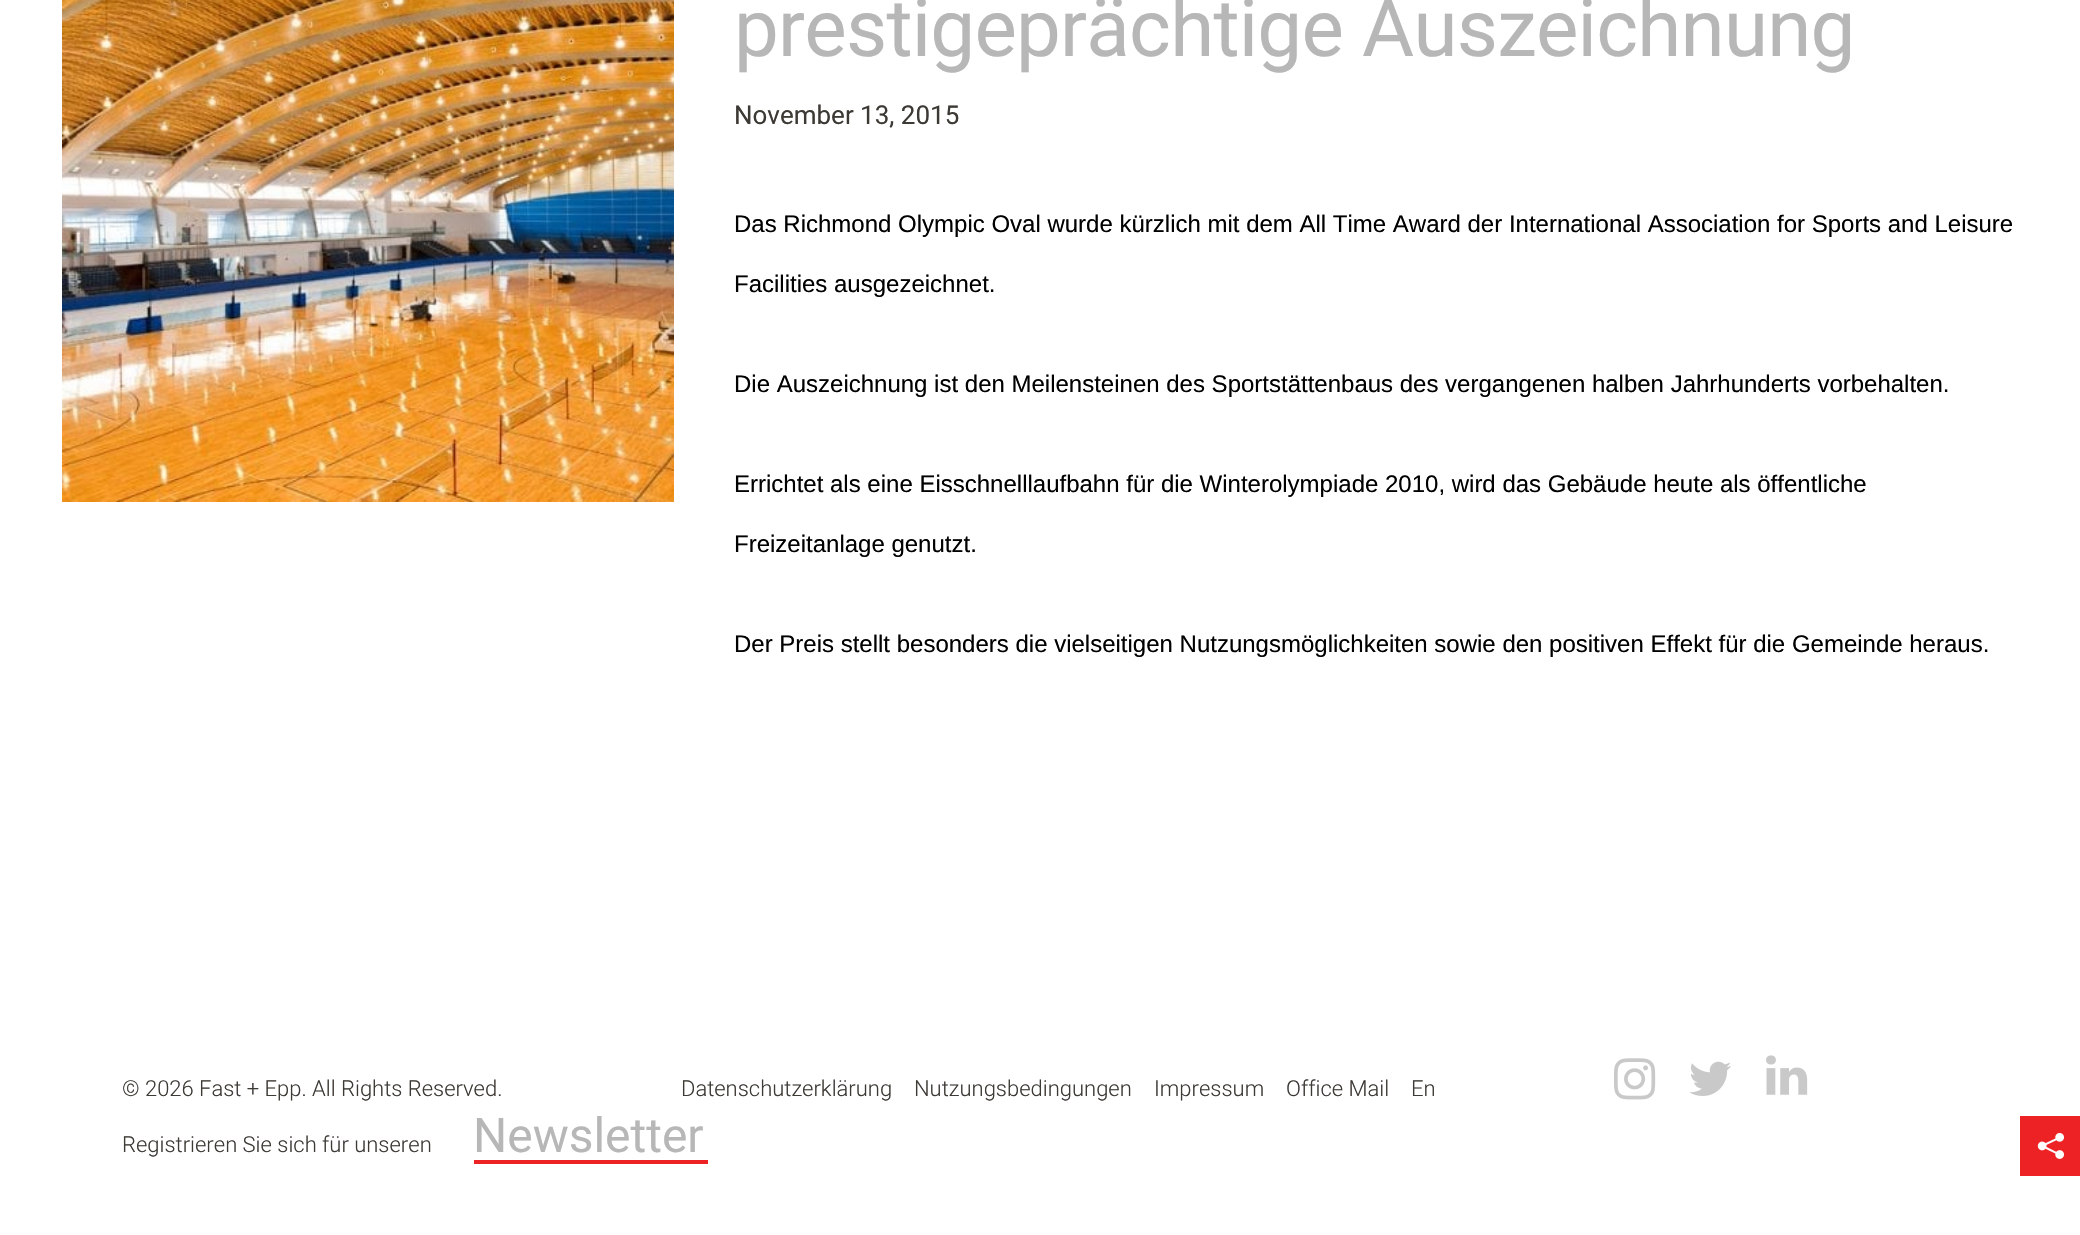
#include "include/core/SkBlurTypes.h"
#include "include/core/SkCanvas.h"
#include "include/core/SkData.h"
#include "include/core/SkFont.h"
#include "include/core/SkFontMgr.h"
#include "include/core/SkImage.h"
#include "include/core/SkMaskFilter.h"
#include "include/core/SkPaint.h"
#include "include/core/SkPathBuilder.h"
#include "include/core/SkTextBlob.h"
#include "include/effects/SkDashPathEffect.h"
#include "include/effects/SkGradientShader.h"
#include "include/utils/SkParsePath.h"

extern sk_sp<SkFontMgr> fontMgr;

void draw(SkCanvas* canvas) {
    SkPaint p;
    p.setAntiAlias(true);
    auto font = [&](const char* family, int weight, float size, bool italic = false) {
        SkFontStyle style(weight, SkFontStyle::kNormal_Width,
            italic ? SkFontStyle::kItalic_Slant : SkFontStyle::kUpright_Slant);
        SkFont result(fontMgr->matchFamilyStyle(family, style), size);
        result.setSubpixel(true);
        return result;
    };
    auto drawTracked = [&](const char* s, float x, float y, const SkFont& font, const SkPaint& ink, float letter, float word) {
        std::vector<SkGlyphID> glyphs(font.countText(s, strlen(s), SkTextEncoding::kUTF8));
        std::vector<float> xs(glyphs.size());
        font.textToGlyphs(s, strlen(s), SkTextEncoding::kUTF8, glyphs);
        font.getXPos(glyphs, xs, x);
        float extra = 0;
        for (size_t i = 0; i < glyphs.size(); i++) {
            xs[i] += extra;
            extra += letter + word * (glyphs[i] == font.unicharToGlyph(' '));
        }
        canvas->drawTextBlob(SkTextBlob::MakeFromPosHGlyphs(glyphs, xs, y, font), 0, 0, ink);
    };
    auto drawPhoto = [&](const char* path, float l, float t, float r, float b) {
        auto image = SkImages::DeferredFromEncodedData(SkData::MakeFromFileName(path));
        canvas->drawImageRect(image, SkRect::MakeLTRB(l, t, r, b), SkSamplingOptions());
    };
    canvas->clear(0xFFFFFFFF);
    drawPhoto("media/1.png", 62, 0, 674, 502);
    auto font1 = font("Roboto", 400, 80);
    p.setColor(0xFFB7B7B7);
    drawTracked("prestigeprächtige Auszeichnung", 734, 56, font1, p, -0.8f, 0);
    auto font2 = font("Roboto", 400, 26);
    p.setColor(0xFF3D3935);
    canvas->drawString("November 13, 2015", 734, 124, font2, p);
    auto font3 = font("Liberation Sans", 400, 24);
    p.setColor(0xFF000000);
    {
        const struct { const char* s; float x, y; } items[] = {
            {"Das Richmond Olympic Oval wurde kürzlich mit dem All Time Award der International Association for Sports and Leisure", 734, 232},
            {"Facilities ausgezeichnet.", 734, 292},
            {"Die Auszeichnung ist den Meilensteinen des Sportstättenbaus des vergangenen halben Jahrhunderts vorbehalten.", 734, 392},
            {"Errichtet als eine Eisschnelllaufbahn für die Winterolympiade 2010, wird das Gebäude heute als öffentliche", 734, 492},
            {"Freizeitanlage genutzt.", 734, 552},
            {"Der Preis stellt besonders die vielseitigen Nutzungsmöglichkeiten sowie den positiven Effekt für die Gemeinde heraus.", 734, 652},
        };
        for (auto [s, x, y] : items) {
            canvas->drawString(s, x, y, font3, p);
        }
    }
    p.setColor(0xFFED2224);
    canvas->drawRect(SkRect::MakeLTRB(2020, 1116, 2080, 1176), p);
    drawPhoto("media/2.png", 2037, 1133, 2064, 1159);
    auto font4 = font("Roboto", 300, 22);
    p.setColor(0xFF3D3935);
    {
        const struct { const char* s; float x, y; } items[] = {
            {"© 2026 Fast + Epp. All Rights Reserved.", 122, 1096},
            {"Datenschutzerklärung", 681, 1096},
            {"Nutzungsbedingungen", 914, 1096},
            {"Impressum", 1154, 1096},
            {"Office Mail", 1286, 1096},
            {"En", 1411, 1096},
        };
        for (auto [s, x, y] : items) {
            canvas->drawString(s, x, y, font4, p);
        }
    }
    drawPhoto("media/3.png", 1614, 1058, 1656, 1100);
    drawPhoto("media/4.png", 1689, 1061, 1731, 1096);
    drawPhoto("media/5.png", 1766, 1055, 1808, 1095);
    canvas->drawString("Registrieren Sie sich für unseren", 122, 1152, font4, p);
    p.setColor(0xFFED2224);
    canvas->drawRect(SkRect::MakeLTRB(474, 1160, 708, 1164), p);
    auto font5 = font("Roboto", 400, 48);
    p.setColor(0xFFB7B7B7);
    canvas->drawString("Newsletter", 473, 1152, font5, p);
}
